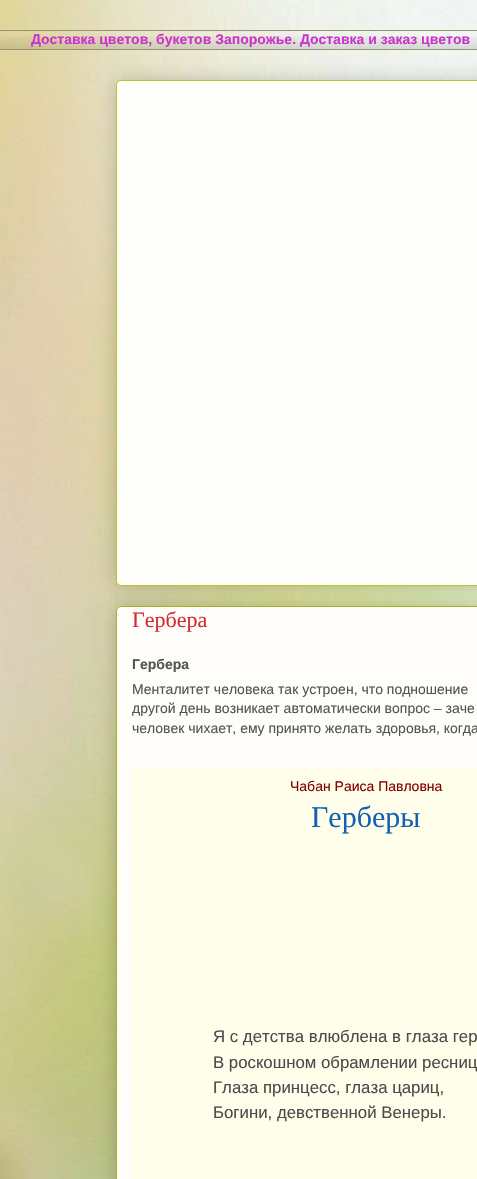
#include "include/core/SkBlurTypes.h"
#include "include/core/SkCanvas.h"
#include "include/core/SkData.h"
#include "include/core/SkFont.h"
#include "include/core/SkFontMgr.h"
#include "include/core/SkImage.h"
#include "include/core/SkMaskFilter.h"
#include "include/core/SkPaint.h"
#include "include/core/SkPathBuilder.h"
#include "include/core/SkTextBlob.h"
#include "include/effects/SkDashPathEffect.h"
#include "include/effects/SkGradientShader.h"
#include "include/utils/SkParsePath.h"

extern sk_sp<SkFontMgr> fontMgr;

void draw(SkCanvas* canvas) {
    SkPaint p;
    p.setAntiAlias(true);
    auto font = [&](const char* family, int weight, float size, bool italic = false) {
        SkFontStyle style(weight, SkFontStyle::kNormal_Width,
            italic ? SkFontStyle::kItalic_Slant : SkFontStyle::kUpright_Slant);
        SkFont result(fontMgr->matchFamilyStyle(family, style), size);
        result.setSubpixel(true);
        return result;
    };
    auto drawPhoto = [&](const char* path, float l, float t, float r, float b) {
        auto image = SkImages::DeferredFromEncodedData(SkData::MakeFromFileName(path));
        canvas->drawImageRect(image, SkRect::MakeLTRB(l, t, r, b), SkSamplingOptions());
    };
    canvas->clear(0xFFFFFFFF);
    drawPhoto("media/1.png", 0, 0, 477, 1179);
    drawPhoto("media/2.png", 0, 36, 477, 49);
    p.setColor(0xFF989473);
    canvas->drawRect(SkRect::MakeLTRB(0, 30, 477, 31), p);
    auto font1 = font("Liberation Sans", 700, 14);
    p.setColor(0xFFCC33CC);
    canvas->drawString("Доставка цветов, букетов Запорожье. Доставка и заказ цветов", 31, 44, font1, p);
    p.setColor(0xFF989473);
    canvas->drawRect(SkRect::MakeLTRB(0, 49, 477, 50), p);
    p.setColor(0x33000000);
    p.setMaskFilter(SkMaskFilter::MakeBlur(kNormal_SkBlurStyle, 10));
    canvas->drawRoundRect(SkRect::MakeLTRB(116, 80, 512, 586), 5, 5, p);
    p.setMaskFilter(nullptr);
    p.setColor(0xFFFEFEFD);
    canvas->drawRoundRect(SkRect::MakeLTRB(116.5f, 80.5f, 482.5f, 585.5f), 4.5f, 4.5f, p);
    p.setStyle(SkPaint::kStroke_Style);
    p.setStrokeWidth(1);
    p.setColor(0xFFBFC526);
    canvas->drawRoundRect(SkRect::MakeLTRB(116.5f, 80.5f, 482.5f, 585.5f), 4.5f, 4.5f, p);
    p.setStyle(SkPaint::kFill_Style);
    p.setColor(0x33000000);
    p.setMaskFilter(SkMaskFilter::MakeBlur(kNormal_SkBlurStyle, 10));
    canvas->drawRoundRect(SkRect::MakeLTRB(116, 606, 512, 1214), 5, 5, p);
    p.setMaskFilter(nullptr);
    p.setColor(0xFFFEFDFA);
    canvas->drawRoundRect(SkRect::MakeLTRB(116.5f, 606.5f, 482.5f, 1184.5f), 4.5f, 4.5f, p);
    p.setStyle(SkPaint::kStroke_Style);
    p.setColor(0xFFAAB123);
    canvas->drawRoundRect(SkRect::MakeLTRB(116.5f, 606.5f, 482.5f, 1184.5f), 4.5f, 4.5f, p);
    auto font2 = font("Liberation Serif", 400, 22);
    p.setStyle(SkPaint::kFill_Style);
    p.setColor(0xFFD52A33);
    canvas->drawString("Гербера", 132, 627, font2, p);
    p.setColor(0xFF535353);
    canvas->drawString("Гербера", 132, 669, font1, p);
    auto font3 = font("Liberation Sans", 400, 14);
    {
        const struct { const char* s; float x, y; } items[] = {
            {"Менталитет человека так устроен, что подношение", 132, 694},
            {"другой день возникает автоматически вопрос – заче", 132, 713},
            {"человек чихает, ему принято желать здоровья, когда", 132, 733},
        };
        for (auto [s, x, y] : items) {
            canvas->drawString(s, x, y, font3, p);
        }
    }
    p.setColor(0xFFFFFEEB);
    canvas->drawRect(SkRect::MakeLTRB(132, 768, 477, 1179), p);
    p.setColor(0xFF800000);
    canvas->drawString("Чабан Раиса Павловна", 290, 791, font3, p);
    auto font4 = font("Liberation Serif", 400, 30);
    p.setColor(0xFF1162B3);
    canvas->drawString("Герберы", 311, 827, font4, p);
    auto font5 = font("Liberation Sans", 400, 16.8f);
    p.setColor(0xFF4B4B4B);
    {
        const struct { const char* s; float x, y; } items[] = {
            {"Я с детства влюблена в глаза гер", 213, 1042},
            {"В роскошном обрамлении ресниц", 213, 1068},
            {"Глаза принцесс, глаза цариц,", 213, 1093},
            {"Богини, девственной Венеры.", 213, 1118},
        };
        for (auto [s, x, y] : items) {
            canvas->drawString(s, x, y, font5, p);
        }
    }
}
